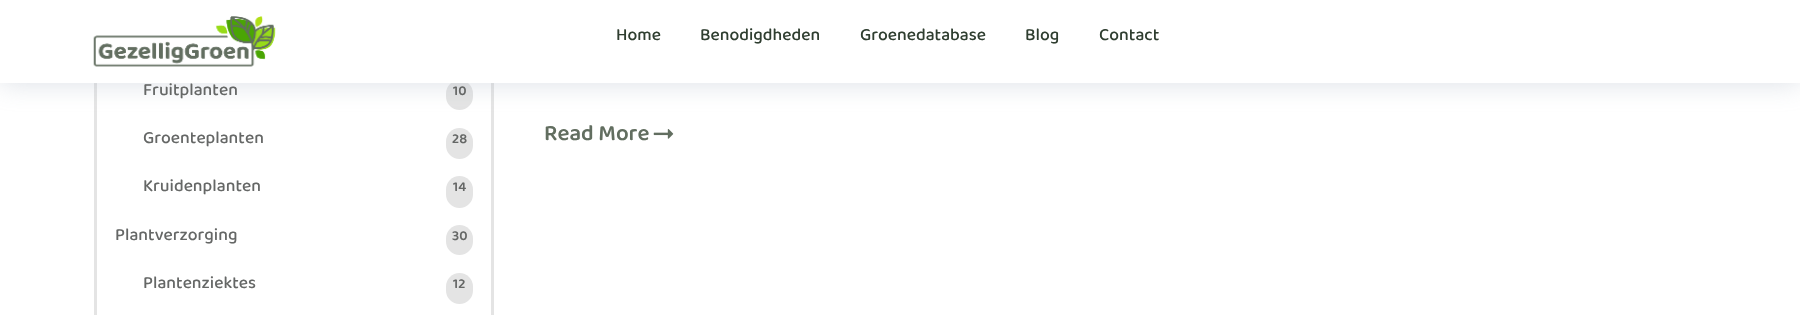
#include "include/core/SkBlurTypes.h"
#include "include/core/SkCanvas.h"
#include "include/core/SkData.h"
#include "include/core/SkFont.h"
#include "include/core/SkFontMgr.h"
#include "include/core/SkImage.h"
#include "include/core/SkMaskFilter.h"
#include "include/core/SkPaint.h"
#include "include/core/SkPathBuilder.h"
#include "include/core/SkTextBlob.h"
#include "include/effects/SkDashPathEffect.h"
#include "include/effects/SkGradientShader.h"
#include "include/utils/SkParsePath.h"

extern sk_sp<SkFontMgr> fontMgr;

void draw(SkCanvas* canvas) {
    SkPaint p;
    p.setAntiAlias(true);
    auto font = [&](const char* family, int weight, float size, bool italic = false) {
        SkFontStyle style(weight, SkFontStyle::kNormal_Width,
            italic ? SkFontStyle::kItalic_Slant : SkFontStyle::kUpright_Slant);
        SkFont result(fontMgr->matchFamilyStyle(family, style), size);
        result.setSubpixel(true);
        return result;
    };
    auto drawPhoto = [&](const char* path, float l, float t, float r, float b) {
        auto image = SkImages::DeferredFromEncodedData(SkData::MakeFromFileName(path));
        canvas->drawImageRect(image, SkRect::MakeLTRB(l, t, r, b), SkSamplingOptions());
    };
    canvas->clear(0xFFFFFFFF);
    p.setStyle(SkPaint::kStroke_Style);
    p.setStrokeWidth(3);
    p.setColor(0xFFE4E4E4);
    canvas->drawRect(SkRect::MakeLTRB(95.5f, -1.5f, 492.5f, 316.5f), p);
    p.setStyle(SkPaint::kFill_Style);
    canvas->drawRoundRect(SkRect::MakeLTRB(446, 80, 473, 110), 13.5f, 13.5f, p);
    p.setColor(0x66ABB3C2);
    p.setMaskFilter(SkMaskFilter::MakeBlur(kNormal_SkBlurStyle, 12.5f));
    canvas->drawRect(SkRect::MakeLTRB(0, 1, 1800, 84), p);
    p.setMaskFilter(nullptr);
    p.setColor(0xFFFFFFFF);
    canvas->drawRect(SkRect::MakeLTRB(0, 0, 1800, 83), p);
    drawPhoto("media/1.png", 93, 16, 276, 67);
    auto font1 = font("Baloo Tammudu 2", 500, 17.5f);
    p.setColor(0xFF2F3E30);
    {
        const struct { const char* s; float x, y; } items[] = {
            {"Home", 616, 40},
            {"Benodigdheden", 700, 40},
            {"Groenedatabase", 860, 40},
            {"Blog", 1025, 40},
            {"Contact", 1099, 40},
        };
        for (auto [s, x, y] : items) {
            canvas->drawString(s, x, y, font1, p);
        }
    }
    p.setColor(0xFF656766);
    canvas->drawString("Fruitplanten", 143, 95, font1, p);
    auto font2 = font("Baloo Tammudu 2", 600, 14);
    canvas->drawString("10", 453, 95, font2, p);
    canvas->drawString("Groenteplanten", 143, 143, font1, p);
    p.setColor(0xFFE4E4E4);
    canvas->drawRoundRect(SkRect::MakeLTRB(446, 128, 473, 159), 13.5f, 13.5f, p);
    p.setColor(0xFF656766);
    canvas->drawString("28", 452, 143, font2, p);
    canvas->drawString("Kruidenplanten", 143, 191, font1, p);
    p.setColor(0xFFE4E4E4);
    canvas->drawRoundRect(SkRect::MakeLTRB(446, 176, 473, 208), 13.5f, 13.5f, p);
    p.setColor(0xFF656766);
    canvas->drawString("14", 453, 191, font2, p);
    canvas->drawString("Plantverzorging", 115, 240, font1, p);
    p.setColor(0xFFE4E4E4);
    canvas->drawRoundRect(SkRect::MakeLTRB(446, 225, 473, 255), 13.5f, 13.5f, p);
    p.setColor(0xFF656766);
    canvas->drawString("30", 452, 240, font2, p);
    canvas->drawString("Plantenziektes", 143, 288, font1, p);
    p.setColor(0xFFE4E4E4);
    canvas->drawRoundRect(SkRect::MakeLTRB(446, 273, 473, 304), 13.5f, 13.5f, p);
    p.setColor(0xFF656766);
    canvas->drawString("12", 453, 288, font2, p);
    auto font3 = font("Baloo Tammudu 2", 600, 22.5f);
    p.setColor(0xFF626E60);
    canvas->drawString("Read More", 544, 140, font3, p);
    drawPhoto("media/2.png", 653, 129, 674, 139);
}
